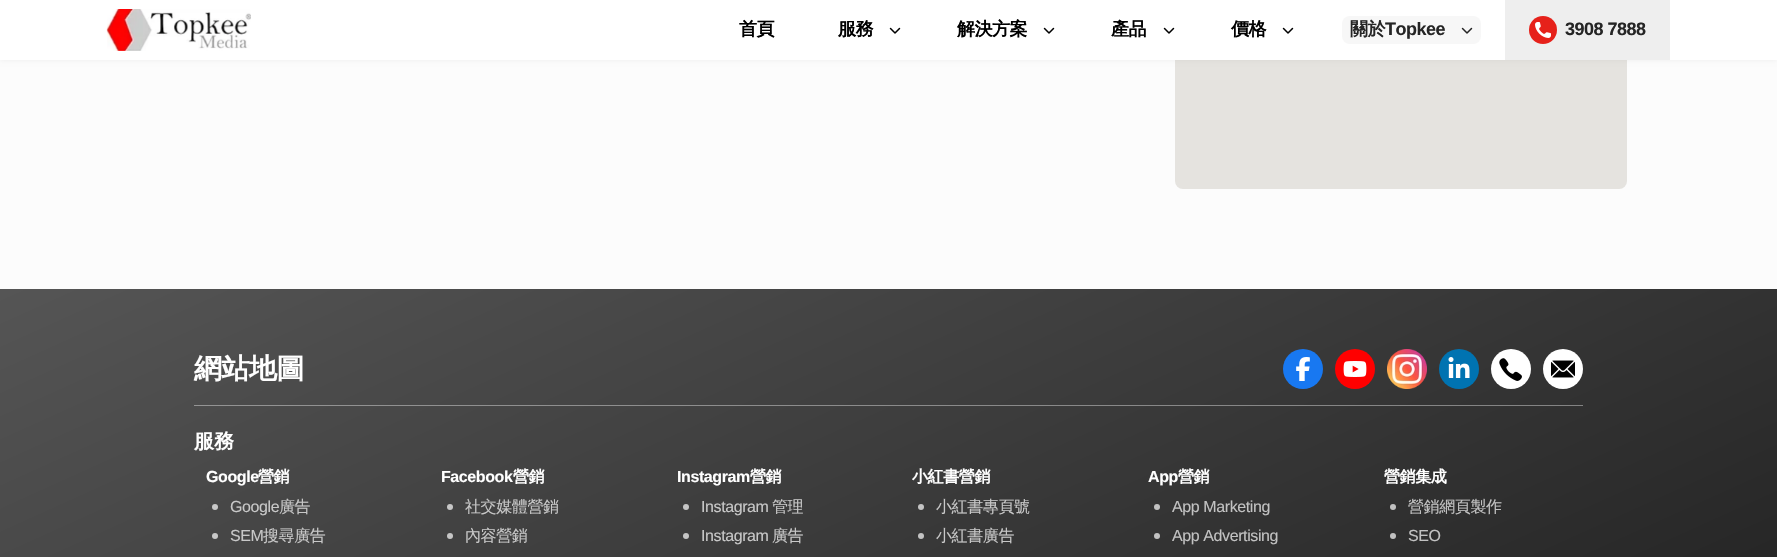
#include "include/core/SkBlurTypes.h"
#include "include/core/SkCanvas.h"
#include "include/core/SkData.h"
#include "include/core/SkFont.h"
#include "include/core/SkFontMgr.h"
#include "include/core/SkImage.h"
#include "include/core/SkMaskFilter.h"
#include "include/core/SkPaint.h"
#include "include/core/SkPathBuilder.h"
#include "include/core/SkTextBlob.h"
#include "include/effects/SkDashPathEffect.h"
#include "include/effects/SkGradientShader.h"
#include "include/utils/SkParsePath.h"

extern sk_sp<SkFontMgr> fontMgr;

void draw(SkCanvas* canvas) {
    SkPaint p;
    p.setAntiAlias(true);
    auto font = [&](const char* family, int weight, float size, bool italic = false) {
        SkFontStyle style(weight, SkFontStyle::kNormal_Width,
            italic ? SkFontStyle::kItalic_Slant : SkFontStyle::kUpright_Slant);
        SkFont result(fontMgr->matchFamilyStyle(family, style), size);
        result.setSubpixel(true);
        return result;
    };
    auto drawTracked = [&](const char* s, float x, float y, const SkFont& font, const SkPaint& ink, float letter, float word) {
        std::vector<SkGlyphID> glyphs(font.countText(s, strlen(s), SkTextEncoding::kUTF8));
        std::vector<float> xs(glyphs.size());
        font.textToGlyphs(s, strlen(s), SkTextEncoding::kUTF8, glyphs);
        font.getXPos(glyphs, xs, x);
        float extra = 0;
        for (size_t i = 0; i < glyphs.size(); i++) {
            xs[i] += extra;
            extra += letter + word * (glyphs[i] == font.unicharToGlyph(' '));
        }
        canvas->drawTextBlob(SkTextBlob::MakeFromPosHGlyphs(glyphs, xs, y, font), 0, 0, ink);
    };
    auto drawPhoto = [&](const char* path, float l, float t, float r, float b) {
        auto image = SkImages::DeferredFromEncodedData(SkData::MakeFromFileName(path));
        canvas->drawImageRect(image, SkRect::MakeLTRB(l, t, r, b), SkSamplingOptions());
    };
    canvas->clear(0xFFFCFCFC);
    p.setColor(0xFFE5E3DF);
    canvas->drawRoundRect(SkRect::MakeLTRB(1175, -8, 1627, 189), 8, 8, p);
    p.setColor(0x0F000000);
    p.setMaskFilter(SkMaskFilter::MakeBlur(kNormal_SkBlurStyle, 2.5f));
    canvas->drawRect(SkRect::MakeLTRB(0, 0, 1777, 60), p);
    p.setMaskFilter(nullptr);
    p.setColor(0xFFFFFFFF);
    canvas->drawRect(SkRect::MakeLTRB(0, 0, 1777, 60), p);
    drawPhoto("media/1.png", 106, 9, 251, 51);
    auto font1 = font("WenQuanYi Zen Hei", 700, 18);
    p.setColor(0xFF000000);
    drawTracked("首頁", 739, 35, font1, p, -0.5f, 0);
    drawTracked("服務", 838, 35, font1, p, -0.5f, 0);
    drawPhoto("media/2.png", 889, 27, 901, 34);
    drawTracked("解決方案", 957, 35, font1, p, -0.5f, 0);
    drawPhoto("media/2.png", 1043, 27, 1055, 34);
    drawTracked("產品", 1111, 35, font1, p, -0.5f, 0);
    drawPhoto("media/2.png", 1163, 27, 1175, 34);
    drawTracked("價格", 1231, 35, font1, p, -0.5f, 0);
    drawPhoto("media/2.png", 1282, 27, 1294, 34);
    p.setColor(0xFFF7F7F7);
    canvas->drawRoundRect(SkRect::MakeLTRB(1342, 16, 1481, 44), 8, 8, p);
    p.setColor(0xFF252525);
    drawTracked("關於", 1350, 35, font1, p, -0.5f, 0);
    auto font2 = font("Liberation Sans", 700, 18);
    drawTracked("Topkee", 1385, 35, font2, p, -0.5f, 0);
    drawPhoto("media/3.png", 1461, 27, 1473, 34);
    p.setColor(0xFFEEEEEE);
    canvas->drawRect(SkRect::MakeLTRB(1505, 0, 1670, 60), p);
    p.setColor(0xFFE6211A);
    canvas->drawCircle(1543, 30, 14, p);
    drawPhoto("media/4.png", 1535, 22, 1551, 38);
    p.setColor(0xFF252525);
    drawTracked("3908 7888", 1565, 35, font2, p, -0.5f, 0);
    {
        const SkColor colors[] = {0xFF555555, 0xFF252525};
        const float stops[] = {0, 0.69f};
        const SkPoint ends[] = {{587, 24}, {1190, 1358}};
        p.setShader(SkGradientShader::MakeLinear(ends, colors, stops, 2, SkTileMode::kClamp));
        p.setAlpha(255);
    }
    canvas->drawRect(SkRect::MakeLTRB(0, 289, 1777, 557), p);
    {
        const SkColor colors[] = {0xFF999999, 0xFF7C7C7C};
        const float stops[] = {0, 0.69f};
        const SkPoint ends[] = {{587, 24}, {1190, 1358}};
        p.setShader(SkGradientShader::MakeLinear(ends, colors, stops, 2, SkTileMode::kClamp));
        p.setAlpha(255);
    }
    canvas->drawRect(SkRect::MakeLTRB(194, 405, 1583, 406), p);
    auto font3 = font("WenQuanYi Zen Hei", 700, 28);
    p.setShader(nullptr);
    p.setColor(0xFFFFFFFF);
    drawTracked("網站地圖", 194, 378, font3, p, -0.5f, 0);
    p.setColor(0xFF1878F1);
    canvas->drawCircle(1303, 369, 20, p);
    drawPhoto("media/5.png", 1296, 357, 1310, 381);
    p.setColor(0xFFFF0000);
    canvas->drawCircle(1355, 369, 20, p);
    drawPhoto("media/6.png", 1343, 361, 1367, 377);
    drawPhoto("media/7.png", 1387, 349, 1427, 389);
    p.setColor(0xFF0073B1);
    canvas->drawCircle(1459, 369, 20, p);
    drawPhoto("media/8.png", 1448, 357, 1470, 378);
    p.setColor(0xFFFFFFFF);
    canvas->drawCircle(1511, 369, 20, p);
    drawPhoto("media/9.png", 1499, 358, 1522, 381);
    canvas->drawCircle(1563, 369, 20, p);
    drawPhoto("media/10.png", 1551, 360, 1575, 378);
    auto font4 = font("WenQuanYi Zen Hei", 700, 20);
    canvas->drawString("服務", 194, 448, font4, p);
    auto font5 = font("Liberation Sans", 700, 16);
    drawTracked("Google", 206, 482, font5, p, -0.4f, 0);
    auto font6 = font("WenQuanYi Zen Hei", 700, 16);
    drawTracked("營銷", 258, 482, font6, p, -0.4f, 0);
    p.setColor(0xFFC8C8C8);
    canvas->drawCircle(215, 507, 3, p);
    auto font7 = font("Liberation Sans", 400, 16);
    drawTracked("Google", 230, 512, font7, p, -0.4f, 0);
    auto font8 = font("WenQuanYi Zen Hei", 500, 16);
    drawTracked("廣告", 279, 512, font8, p, -0.4f, 0);
    canvas->drawCircle(215, 536, 3, p);
    drawTracked("SEM", 230, 541, font7, p, -0.4f, 0);
    drawTracked("搜尋廣告", 263, 541, font8, p, -0.4f, 0);
    p.setColor(0xFFFFFFFF);
    drawTracked("Facebook", 441, 482, font5, p, -0.4f, 0);
    drawTracked("營銷", 513, 482, font6, p, -0.4f, 0);
    p.setColor(0xFFC7C7C7);
    canvas->drawCircle(450, 507, 3, p);
    p.setColor(0xFFC8C8C8);
    drawTracked("社交媒體營銷", 465, 512, font8, p, -0.4f, 0);
    p.setColor(0xFFC6C6C6);
    canvas->drawCircle(450, 536, 3, p);
    p.setColor(0xFFC8C8C8);
    drawTracked("內容營銷", 465, 541, font8, p, -0.4f, 0);
    p.setColor(0xFFFFFFFF);
    drawTracked("Instagram", 677, 482, font5, p, -0.4f, 0);
    drawTracked("營銷", 750, 482, font6, p, -0.4f, 0);
    p.setColor(0xFFC5C5C5);
    canvas->drawCircle(686, 507, 3, p);
    p.setColor(0xFFC8C8C8);
    drawTracked("Instagram", 701, 512, font7, p, -0.4f, 0);
    drawTracked("管理", 772, 512, font8, p, -0.4f, 0);
    p.setColor(0xFFC5C5C5);
    canvas->drawCircle(686, 536, 3, p);
    p.setColor(0xFFC8C8C8);
    drawTracked("Instagram", 701, 541, font7, p, -0.4f, 0);
    drawTracked("廣告", 772, 541, font8, p, -0.4f, 0);
    p.setColor(0xFFFFFFFF);
    drawTracked("小紅書營銷", 912, 482, font6, p, -0.4f, 0);
    p.setColor(0xFFC4C4C4);
    canvas->drawCircle(921, 507, 3, p);
    p.setColor(0xFFC8C8C8);
    drawTracked("小紅書專頁號", 936, 512, font8, p, -0.4f, 0);
    p.setColor(0xFFC3C3C3);
    canvas->drawCircle(921, 536, 3, p);
    p.setColor(0xFFC8C8C8);
    drawTracked("小紅書廣告", 936, 541, font8, p, -0.4f, 0);
    p.setColor(0xFFFFFFFF);
    drawTracked("App", 1148, 482, font5, p, -0.4f, 0);
    drawTracked("營銷", 1178, 482, font6, p, -0.4f, 0);
    p.setColor(0xFFC2C2C2);
    canvas->drawCircle(1157, 507, 3, p);
    drawTracked("App Marketing", 1172, 512, font7, p, -0.4f, 0);
    canvas->drawCircle(1157, 536, 3, p);
    drawTracked("App Advertising", 1172, 541, font7, p, -0.4f, 0);
    p.setColor(0xFFFFFFFF);
    drawTracked("營銷集成", 1384, 482, font6, p, -0.4f, 0);
    p.setColor(0xFFC1C1C1);
    canvas->drawCircle(1393, 507, 3, p);
    p.setColor(0xFFC2C2C2);
    drawTracked("營銷網頁製作", 1408, 512, font8, p, -0.4f, 0);
    p.setColor(0xFFC1C1C1);
    canvas->drawCircle(1393, 536, 3, p);
    p.setColor(0xFFC2C2C2);
    drawTracked("SEO", 1408, 541, font7, p, -0.4f, 0);
}
